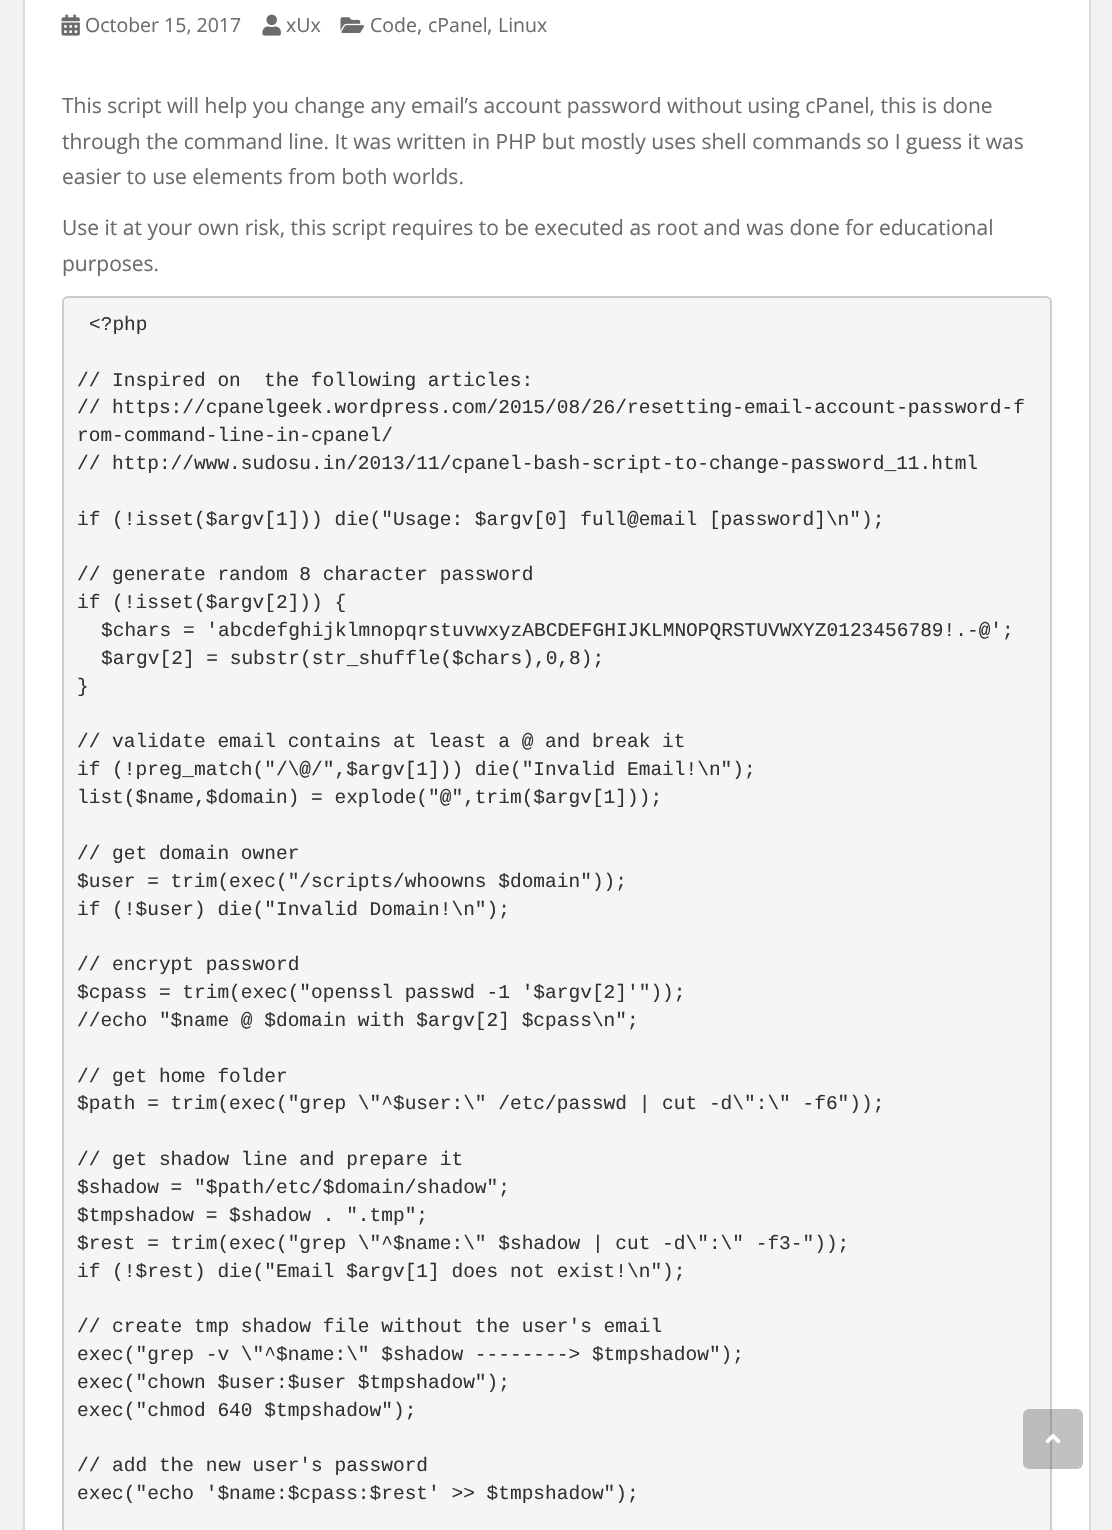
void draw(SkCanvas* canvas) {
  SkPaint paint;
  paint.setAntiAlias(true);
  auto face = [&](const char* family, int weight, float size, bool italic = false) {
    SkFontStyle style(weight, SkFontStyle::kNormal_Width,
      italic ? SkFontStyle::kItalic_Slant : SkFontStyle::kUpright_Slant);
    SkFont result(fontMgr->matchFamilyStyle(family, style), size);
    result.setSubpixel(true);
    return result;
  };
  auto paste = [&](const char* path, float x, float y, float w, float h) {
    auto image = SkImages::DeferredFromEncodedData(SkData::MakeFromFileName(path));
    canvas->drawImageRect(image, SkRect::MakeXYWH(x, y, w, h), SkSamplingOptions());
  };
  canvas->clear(0xfff2f2f2);
  paint.setColor(0xffffffff);
  canvas->drawRect(SkRect::MakeXYWH(24, -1, 1066, 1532), paint);
  paint.setStroke(true);
  paint.setStrokeWidth(2);
  paint.setColor(0xffdadada);
  canvas->drawRect(SkRect::MakeXYWH(24, -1, 1066, 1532), paint);
  paste("img/1.png", 61, 14, 19, 22);
  paste("img/2.png", 262, 14, 19, 22);
  paste("img/3.png", 340, 17, 25, 16);
  paint.setStroke(false);
  paint.setColor(0xfff5f5f5);
  canvas->drawRoundRect(SkRect::MakeXYWH(63, 297, 988, 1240), 5, 5, paint);
  paint.setStroke(true);
  paint.setColor(0xffcccccc);
  canvas->drawRoundRect(SkRect::MakeXYWH(63, 297, 988, 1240), 5, 5, paint);
  paint.setStroke(false);
  paint.setColor(0x66646464);
  canvas->drawRoundRect(SkRect::MakeXYWH(1023, 1409, 60, 60), 6, 6, paint);
  paste("img/4.png", 1045, 1433, 16, 11);
  auto f0 = face("Open Sans", 400, 19.5f);
  paint.setColor(0xff6b6b6b);
  {
    const struct { const char* s; float x, y; } items[] = {
      {"October 15, 2017", 85, 32},
      {"xUx", 286, 32},
      {"Code", 370, 32},
    };
    for (auto [s, x, y] : items) {
      canvas->drawString(s, x, y, f0, paint);
    }
  }
  auto f1 = face("Open Sans", 400, 21);
  canvas->drawString(",", 417, 32, f1, paint);
  canvas->drawString("cPanel", 428, 32, f0, paint);
  canvas->drawString(",", 487, 32, f1, paint);
  canvas->drawString("Linux", 498, 32, f0, paint);
  {
    const struct { const char* s; float x, y; } items[] = {
      {"This script will help you change any email’s account password without using cPanel, this is done", 62, 113},
      {"through the command line. It was written in PHP but mostly uses shell commands so I guess it was", 62, 149},
      {"easier to use elements from both worlds.", 62, 184},
      {"Use it at your own risk, this script requires to be executed as root and was done for educational", 62, 235},
      {"purposes.", 62, 271},
    };
    for (auto [s, x, y] : items) {
      canvas->drawString(s, x, y, f1, paint);
    }
  }
  auto f2 = face("Liberation Mono", 400, 19.5f);
  paint.setColor(0xff333333);
  {
    const struct { const char* s; float x, y; } items[] = {
      {"<?php", 89, 330},
      {"// Inspired on", 77, 386},
      {"the following articles:", 264, 386},
      {"// https://cpanelgeek.wordpress.com/2015/08/26/resetting-email-account-password-f", 77, 413},
      {"rom-command-line-in-cpanel/", 77, 441},
      {"// http://www.sudosu.in/2013/11/cpanel-bash-script-to-change-password_11.html", 77, 469},
      {"if (!isset($argv[1])) die(\"Usage: $argv[0] full@email [password]\\n\");", 77, 525},
      {"// generate random 8 character password", 77, 580},
      {"if (!isset($argv[2])) {", 77, 608},
      {"$chars = 'abcdefghijklmnopqrstuvwxyzABCDEFGHIJKLMNOPQRSTUVWXYZ0123456789!.-@';", 101, 636},
      {"$argv[2] = substr(str_shuffle($chars),0,8);", 101, 664},
      {"}", 77, 692},
      {"// validate email contains at least a @ and break it", 77, 747},
      {"if (!preg_match(\"/\\@/\",$argv[1])) die(\"Invalid Email!\\n\");", 77, 775},
      {"list($name,$domain) = explode(\"@\",trim($argv[1]));", 77, 803},
      {"// get domain owner", 77, 859},
      {"$user = trim(exec(\"/scripts/whoowns $domain\"));", 77, 887},
      {"if (!$user) die(\"Invalid Domain!\\n\");", 77, 915},
      {"// encrypt password", 77, 970},
      {"$cpass = trim(exec(\"openssl passwd -1 '$argv[2]'\"));", 77, 998},
      {"//echo \"$name @ $domain with $argv[2] $cpass\\n\";", 77, 1026},
      {"// get home folder", 77, 1082},
      {"$path = trim(exec(\"grep \\\"^$user:\\\" /etc/passwd | cut -d\\\":\\\" -f6\"));", 77, 1109},
      {"// get shadow line and prepare it", 77, 1165},
      {"$shadow = \"$path/etc/$domain/shadow\";", 77, 1193},
      {"$tmpshadow = $shadow . \".tmp\";", 77, 1221},
      {"$rest = trim(exec(\"grep \\\"^$name:\\\" $shadow | cut -d\\\":\\\" -f3-\"));", 77, 1249},
      {"if (!$rest) die(\"Email $argv[1] does not exist!\\n\");", 77, 1277},
      {"// create tmp shadow file without the user's email", 77, 1332},
      {"exec(\"grep -v \\\"^$name:\\\" $shadow --------> $tmpshadow\");", 77, 1360},
      {"exec(\"chown $user:$user $tmpshadow\");", 77, 1388},
      {"exec(\"chmod 640 $tmpshadow\");", 77, 1416},
      {"// add the new user's password", 77, 1471},
      {"exec(\"echo '$name:$cpass:$rest' >> $tmpshadow\");", 77, 1499},
    };
    for (auto [s, x, y] : items) {
      canvas->drawString(s, x, y, f2, paint);
    }
  }
}
